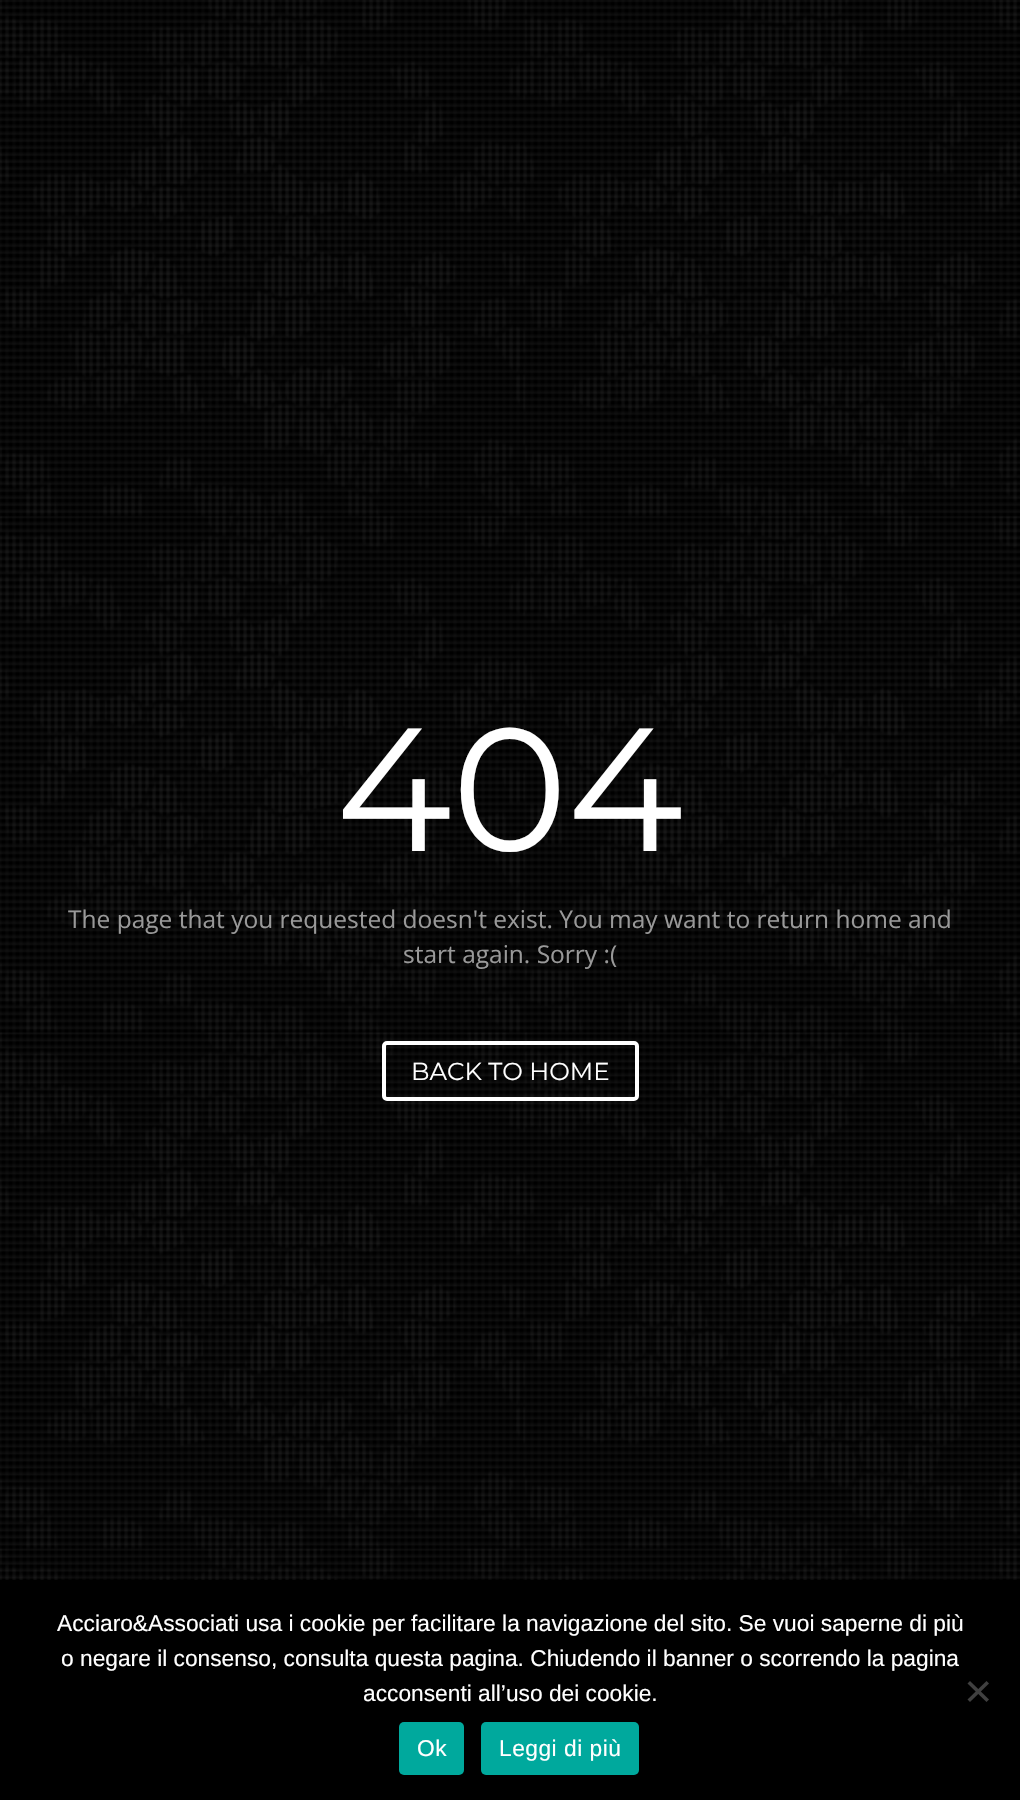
void draw(SkCanvas* canvas) {
  SkPaint paint;
  paint.setAntiAlias(true);
  auto face = [&](const char* family, int weight, float size, bool italic = false) {
    SkFontStyle style(weight, SkFontStyle::kNormal_Width,
      italic ? SkFontStyle::kItalic_Slant : SkFontStyle::kUpright_Slant);
    SkFont result(fontMgr->matchFamilyStyle(family, style), size);
    result.setSubpixel(true);
    return result;
  };
  auto writeSpaced = [&](const char* s, float x, float y, const SkFont& font, const SkPaint& ink, float letter, float word) {
    std::vector<SkGlyphID> glyphs(font.countText(s, strlen(s), SkTextEncoding::kUTF8));
    std::vector<float> xs(glyphs.size());
    font.textToGlyphs(s, strlen(s), SkTextEncoding::kUTF8, glyphs);
    font.getXPos(glyphs, xs, x);
    float extra = 0;
    for (size_t i = 0; i < glyphs.size(); i++) {
      xs[i] += extra;
      extra += letter + word * (glyphs[i] == font.unicharToGlyph(' '));
    }
    canvas->drawTextBlob(SkTextBlob::MakeFromPosHGlyphs(glyphs, xs, y, font), 0, 0, ink);
  };
  auto paste = [&](const char* path, float x, float y, float w, float h) {
    auto image = SkImages::DeferredFromEncodedData(SkData::MakeFromFileName(path));
    canvas->drawImageRect(image, SkRect::MakeXYWH(x, y, w, h), SkSamplingOptions());
  };
  auto shape = [&](const char* data, bool evenOdd = false) {
    SkPath result = *SkParsePath::FromSVGString(data);
    if (evenOdd) result.setFillType(SkPathFillType::kEvenOdd);
    return result;
  };
  canvas->clear(0xffffffff);
  paste("img/1.png", 0, 0, 1020, 1580);
  paint.setStroke(true);
  paint.setStrokeWidth(4);
  paint.setColor(0xffffffff);
  canvas->drawRoundRect(SkRect::MakeXYWH(384, 1043, 253, 56), 3, 3, paint);
  paint.setStroke(false);
  paint.setColor(0xff000000);
  canvas->drawRect(SkRect::MakeXYWH(0, 1580, 1020, 220), paint);
  paint.setColor(0xff404040);
  canvas->drawPath(shape("M986.5 1681L989 1683.5L970 1702L967.5 1699.5Z"), paint);
  canvas->drawPath(shape("M967.5 1683.5L970 1681L989 1699.5L986.5 1702Z"), paint);
  paint.setColor(0xff00a99d);
  canvas->drawRoundRect(SkRect::MakeXYWH(399, 1722, 65, 53), 5, 5, paint);
  canvas->drawRoundRect(SkRect::MakeXYWH(481, 1722, 158, 53), 5, 5, paint);
  auto f0 = face("Montserrat", 400, 175);
  paint.setColor(0xffffffff);
  canvas->drawString("404", 336, 851, f0, paint);
  auto f1 = face("Open Sans", 400, 24.5f);
  paint.setColor(0xff999999);
  canvas->drawString("The page that you requested doesn't exist. You may want to return home and", 68, 928, f1, paint);
  canvas->drawString("start again. Sorry :(", 403, 963, f1, paint);
  auto f2 = face("Montserrat", 400, 24.5f);
  paint.setColor(0xffffffff);
  canvas->drawString("BACK TO HOME", 411, 1080, f2, paint);
  auto f3 = face("Liberation Sans", 400, 22.75f);
  {
    const struct { const char* s; float x, y; } items[] = {
      {"Acciaro&Associati usa i cookie per facilitare la navigazione del sito. Se vuoi saperne di più", 57, 1631},
      {"o negare il consenso, consulta questa pagina. Chiudendo il banner o scorrendo la pagina", 61, 1666},
      {"acconsenti all’uso dei cookie.", 363, 1701},
    };
    for (auto [s, x, y] : items) {
      canvas->drawString(s, x, y, f3, paint);
    }
  }
  writeSpaced("Ok", 417, 1756, f3, paint, 0.5f, 0);
  writeSpaced("Leggi di più", 499, 1756, f3, paint, 0.5f, 0);
}
